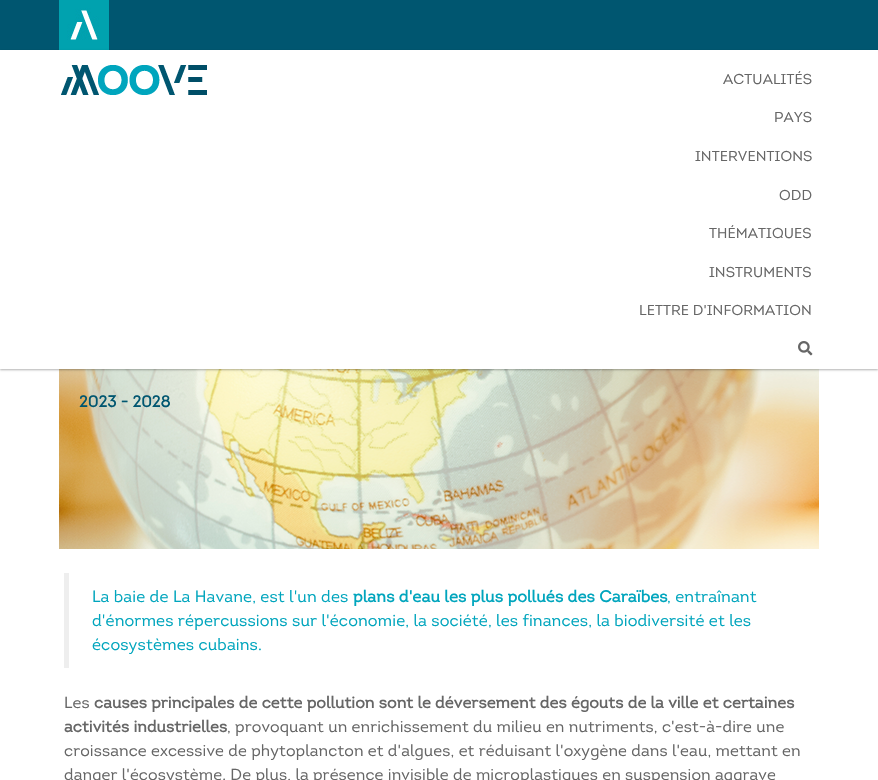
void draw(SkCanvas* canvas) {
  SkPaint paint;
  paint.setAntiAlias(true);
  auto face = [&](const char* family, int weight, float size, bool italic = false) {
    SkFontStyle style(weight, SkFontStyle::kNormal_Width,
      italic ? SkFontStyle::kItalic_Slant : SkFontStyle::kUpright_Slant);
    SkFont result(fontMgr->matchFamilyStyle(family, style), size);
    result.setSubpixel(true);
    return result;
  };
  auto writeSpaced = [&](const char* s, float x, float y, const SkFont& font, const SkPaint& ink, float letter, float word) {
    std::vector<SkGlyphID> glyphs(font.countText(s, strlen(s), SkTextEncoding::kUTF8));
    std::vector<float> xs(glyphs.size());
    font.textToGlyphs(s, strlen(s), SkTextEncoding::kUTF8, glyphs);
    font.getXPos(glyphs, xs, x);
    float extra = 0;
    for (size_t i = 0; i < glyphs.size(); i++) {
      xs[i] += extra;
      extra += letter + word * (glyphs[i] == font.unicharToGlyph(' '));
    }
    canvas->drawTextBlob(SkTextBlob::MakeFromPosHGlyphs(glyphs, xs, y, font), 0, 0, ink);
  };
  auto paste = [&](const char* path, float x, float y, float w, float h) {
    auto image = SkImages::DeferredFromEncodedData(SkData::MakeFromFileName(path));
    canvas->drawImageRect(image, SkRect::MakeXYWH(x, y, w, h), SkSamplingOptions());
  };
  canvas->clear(0xffffffff);
  paint.setColor(0xff005670);
  canvas->drawRect(SkRect::MakeXYWH(0, 0, 878, 50), paint);
  paste("img/1.png", 59, 0, 50, 50);
  paste("img/4.png", 59, 369, 760, 180);
  paint.setColor(0x4d000000);
  paint.setMaskFilter(SkMaskFilter::MakeBlur(kNormal_SkBlurStyle, 1));
  canvas->drawRect(SkRect::MakeXYWH(0, 51, 878, 319), paint);
  paint.setMaskFilter(nullptr);
  paint.setColor(0xffffffff);
  canvas->drawRect(SkRect::MakeXYWH(0, 50, 878, 319), paint);
  paste("img/2.png", 61, 65, 146, 30);
  paste("img/3.png", 798, 341, 15, 15);
  paint.setColor(0xffeeeeee);
  canvas->drawRect(SkRect::MakeXYWH(64, 573, 5, 95), paint);
  auto f0 = face("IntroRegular", 400, 14.4f);
  paint.setColor(0xff666666);
  {
    const struct { const char* s; float x, y; } items[] = {
      {"ACTUALITÉS", 723, 84},
      {"PAYS", 774, 122},
      {"INTERVENTIONS", 695, 161},
      {"ODD", 779, 200},
      {"THÉMATIQUES", 709, 238},
      {"INSTRUMENTS", 709, 277},
      {"LETTRE D'INFORMATION", 639, 315},
    };
    for (auto [s, x, y] : items) {
      writeSpaced(s, x, y, f0, paint, 0.1f, 0);
    }
  }
  auto f1 = face("IntroRegular", 700, 16);
  paint.setColor(0xff005670);
  writeSpaced("2023 - 2028", 79, 407, f1, paint, 0.1f, 0);
  auto f2 = face("IntroRegular", 400, 16.25f);
  paint.setColor(0xff00a5bd);
  writeSpaced("La baie de La Havane, est l'un des", 92, 602, f2, paint, 0.1f, 0);
  auto f3 = face("IntroRegular", 700, 16.25f);
  writeSpaced("plans d'eau les plus pollués des Caraïbes", 353, 602, f3, paint, 0.1f, 0);
  {
    const struct { const char* s; float x, y; } items[] = {
      {", entraînant", 667, 602},
      {"d'énormes répercussions sur l'économie, la société, les finances, la biodiversité et les", 92, 626},
      {"écosystèmes cubains.", 92, 650},
    };
    for (auto [s, x, y] : items) {
      writeSpaced(s, x, y, f2, paint, 0.1f, 0);
    }
  }
  auto f4 = face("IntroRegular", 400, 16);
  paint.setColor(0xff666666);
  writeSpaced("Les", 64, 708, f4, paint, 0.1f, 0);
  writeSpaced("causes principales de cette pollution sont le déversement des égouts de la ville et certaines", 94, 708, f1, paint, 0.1f, 0);
  writeSpaced("activités industrielles", 64, 732, f1, paint, 0.1f, 0);
  {
    const struct { const char* s; float x, y; } items[] = {
      {", provoquant un enrichissement du milieu en nutriments, c'est-à-dire une", 227, 732},
      {"croissance excessive de phytoplancton et d'algues, et réduisant l'oxygène dans l'eau, mettant en", 64, 756},
      {"danger l'écosystème. De plus, la présence invisible de microplastiques en suspension aggrave", 64, 780},
    };
    for (auto [s, x, y] : items) {
      writeSpaced(s, x, y, f4, paint, 0.1f, 0);
    }
  }
}
